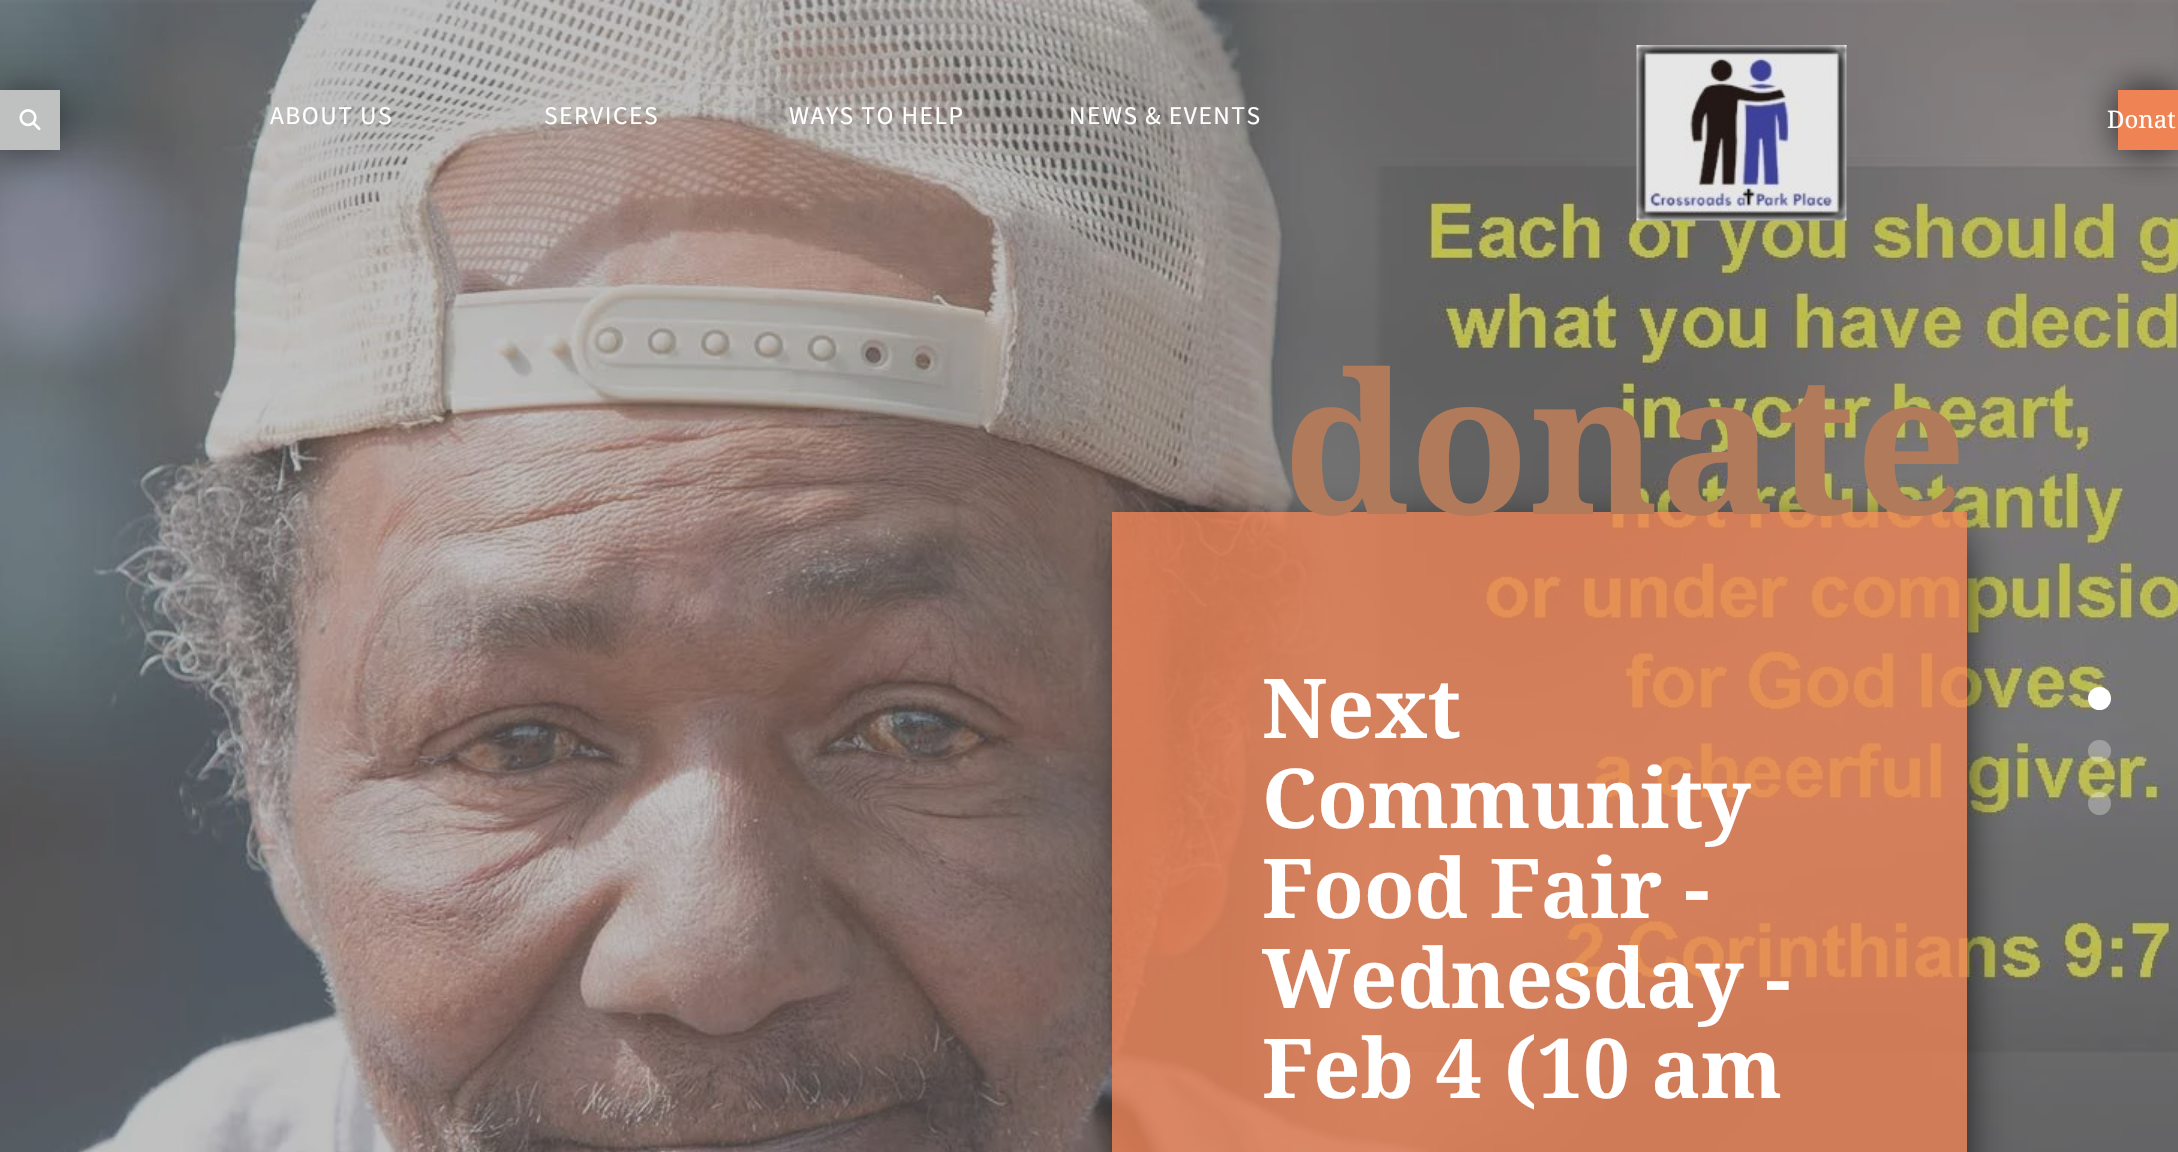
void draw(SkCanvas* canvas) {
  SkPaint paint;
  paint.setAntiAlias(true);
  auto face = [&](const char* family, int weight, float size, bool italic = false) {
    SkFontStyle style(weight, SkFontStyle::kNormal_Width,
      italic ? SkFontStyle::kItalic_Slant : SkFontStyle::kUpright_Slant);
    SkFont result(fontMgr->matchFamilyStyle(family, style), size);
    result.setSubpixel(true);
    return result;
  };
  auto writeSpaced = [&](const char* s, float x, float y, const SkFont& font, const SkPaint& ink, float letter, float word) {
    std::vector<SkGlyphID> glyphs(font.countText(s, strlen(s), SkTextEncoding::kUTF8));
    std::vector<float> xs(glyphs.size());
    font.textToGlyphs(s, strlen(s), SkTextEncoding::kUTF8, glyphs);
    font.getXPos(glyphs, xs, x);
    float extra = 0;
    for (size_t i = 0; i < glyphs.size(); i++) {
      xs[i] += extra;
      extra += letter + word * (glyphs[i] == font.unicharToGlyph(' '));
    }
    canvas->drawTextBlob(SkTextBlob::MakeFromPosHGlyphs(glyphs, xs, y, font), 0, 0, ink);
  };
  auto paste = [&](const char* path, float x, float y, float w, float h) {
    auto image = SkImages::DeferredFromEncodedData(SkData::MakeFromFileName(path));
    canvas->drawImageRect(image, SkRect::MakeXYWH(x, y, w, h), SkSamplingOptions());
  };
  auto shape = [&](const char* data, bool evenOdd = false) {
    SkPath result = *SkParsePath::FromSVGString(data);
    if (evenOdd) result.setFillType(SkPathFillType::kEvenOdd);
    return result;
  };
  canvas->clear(0xffffffff);
  paste("img/3.png", 0, 0, 2178, 1152);
  paint.setColor(0xff000000);
  paint.setMaskFilter(SkMaskFilter::MakeBlur(kNormal_SkBlurStyle, 22.5f));
  canvas->drawRect(SkRect::MakeXYWH(11, 101, 39, 39), paint);
  paint.setMaskFilter(nullptr);
  paint.setColor(0xffbfc0c0);
  canvas->drawRect(SkRect::MakeXYWH(0, 90, 60, 60), paint);
  paste("img/1.png", 19, 109, 22, 22);
  paste("img/2.png", 1636, 45, 211, 176);
  paint.setColor(0xff000000);
  paint.setMaskFilter(SkMaskFilter::MakeBlur(kNormal_SkBlurStyle, 22.5f));
  canvas->drawRect(SkRect::MakeXYWH(2129, 101, 39, 39), paint);
  paint.setMaskFilter(nullptr);
  paint.setColor(0xffef8354);
  canvas->drawRect(SkRect::MakeXYWH(2118, 90, 60, 60), paint);
  canvas->save();
  canvas->clipPath(shape("M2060 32H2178V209H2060ZM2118 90H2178V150H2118Z", true), true);
  paint.setColor(0xff000000);
  paint.setMaskFilter(SkMaskFilter::MakeBlur(kNormal_SkBlurStyle, 22.5f));
  canvas->drawRect(SkRect::MakeXYWH(2129, 101, 39, 39), paint);
  paint.setMaskFilter(nullptr);
  canvas->restore();
  canvas->save();
  canvas->clipPath(shape("M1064 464H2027V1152H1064ZM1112 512H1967V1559H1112Z", true), true);
  paint.setMaskFilter(SkMaskFilter::MakeBlur(kNormal_SkBlurStyle, 22.5f));
  canvas->drawRect(SkRect::MakeXYWH(1133, 533, 825, 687), paint);
  paint.setMaskFilter(nullptr);
  canvas->restore();
  paint.setColor(0xc7ef8354);
  canvas->drawRect(SkRect::MakeXYWH(1112, 512, 855, 640), paint);
  paint.setColor(0xffffffff);
  canvas->drawCircle(2099.5f, 698.5f, 11.5f, paint);
  paint.setColor(0x4dffffff);
  canvas->drawRoundRect(SkRect::MakeXYWH(2088, 740, 23, 22), 11, 11, paint);
  canvas->drawCircle(2099.5f, 803.5f, 11.5f, paint);
  auto f0 = face("Source Sans 3", 400, 25.5f);
  paint.setColor(0xffffffff);
  {
    const struct { const char* s; float x, y; } items[] = {
      {"ABOUT US", 270, 124},
      {"SERVICES", 544, 124},
      {"WAYS TO HELP", 789, 124},
      {"NEWS & EVENTS", 1069, 124},
    };
    for (auto [s, x, y] : items) {
      writeSpaced(s, x, y, f0, paint, 1.5f, 0);
    }
  }
  auto f1 = face("Noto Serif", 400, 24);
  canvas->drawString("Donat", 2107, 128, f1, paint);
  auto f2 = face("Noto Serif", 700, 195);
  paint.setColor(0xffb17a5b);
  canvas->drawString("donate", 1283, 514, f2, paint);
  auto f3 = face("Noto Serif", 700, 82.5f);
  paint.setColor(0xffffffff);
  {
    const struct { const char* s; float x, y; } items[] = {
      {"Next", 1262, 738},
      {"Community", 1262, 828},
      {"Food Fair -", 1262, 918},
      {"Wednesday -", 1262, 1008},
      {"Feb 4 (10 am", 1262, 1098},
    };
    for (auto [s, x, y] : items) {
      canvas->drawString(s, x, y, f3, paint);
    }
  }
}
